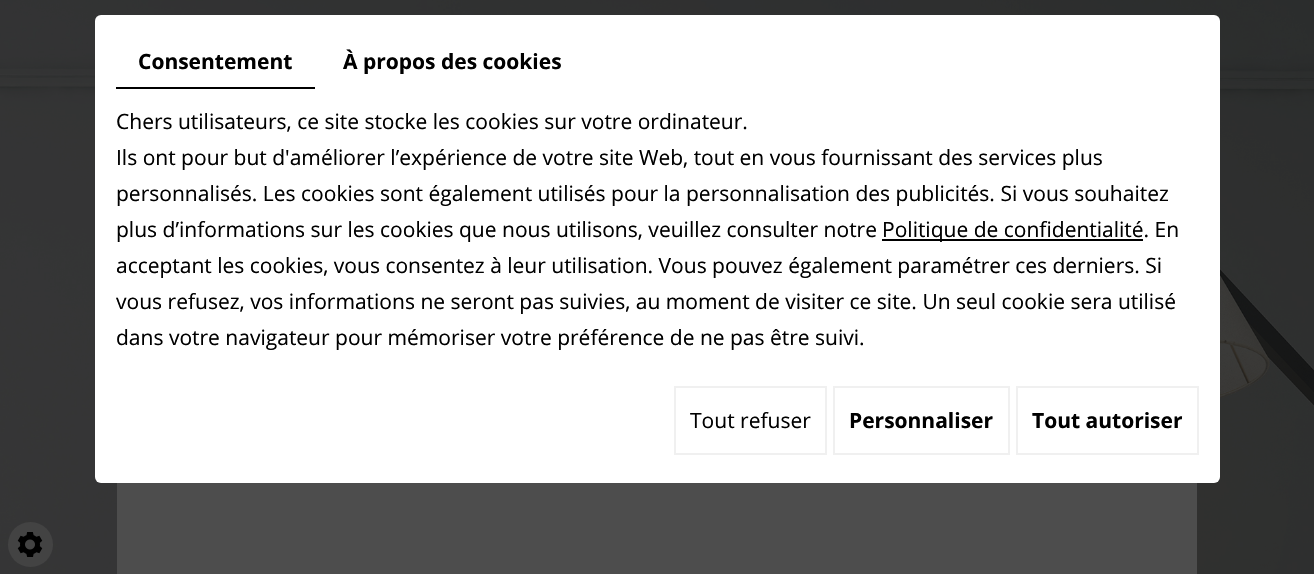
void draw(SkCanvas* canvas) {
  SkPaint paint;
  paint.setAntiAlias(true);
  auto face = [&](const char* family, int weight, float size, bool italic = false) {
    SkFontStyle style(weight, SkFontStyle::kNormal_Width,
      italic ? SkFontStyle::kItalic_Slant : SkFontStyle::kUpright_Slant);
    SkFont result(fontMgr->matchFamilyStyle(family, style), size);
    result.setSubpixel(true);
    return result;
  };
  auto paste = [&](const char* path, float x, float y, float w, float h) {
    auto image = SkImages::DeferredFromEncodedData(SkData::MakeFromFileName(path));
    canvas->drawImageRect(image, SkRect::MakeXYWH(x, y, w, h), SkSamplingOptions());
  };
  canvas->clear(0xffffffff);
  paste("img/1.png", 0, 0, 1314, 574);
  paint.setColor(0xffffffff);
  canvas->drawRoundRect(SkRect::MakeXYWH(95, 15, 1125, 468), 6, 6, paint);
  paint.setColor(0xff000000);
  canvas->drawRect(SkRect::MakeXYWH(116, 87, 199, 2), paint);
  canvas->drawRect(SkRect::MakeXYWH(882, 239, 261, 2), paint);
  paint.setStroke(true);
  paint.setStrokeWidth(2);
  paint.setColor(0xfff0f0f0);
  canvas->drawRect(SkRect::MakeXYWH(675, 387, 151, 67), paint);
  canvas->drawRect(SkRect::MakeXYWH(834, 387, 175, 67), paint);
  canvas->drawRect(SkRect::MakeXYWH(1017, 387, 181, 67), paint);
  paint.setStroke(false);
  paint.setColor(0x8a4d4d4d);
  canvas->drawCircle(30.5f, 544.5f, 22.5f, paint);
  paste("img/2.png", 17, 532, 26, 25);
  paint.setColor(0xff4d4d4d);
  canvas->drawRect(SkRect::MakeXYWH(117, 483, 1080, 91), paint);
  auto f0 = face("Open Sans", 700, 21);
  paint.setColor(0xff000000);
  canvas->drawString("Consentement", 138, 69, f0, paint);
  canvas->drawString("À propos des cookies", 343, 69, f0, paint);
  auto f1 = face("Open Sans", 400, 21);
  {
    const struct { const char* s; float x, y; } items[] = {
      {"Chers utilisateurs, ce site stocke les cookies sur votre ordinateur.", 116, 129},
      {"Ils ont pour but d'améliorer l’expérience de votre site Web, tout en vous fournissant des services plus", 116, 165},
      {"personnalisés. Les cookies sont également utilisés pour la personnalisation des publicités. Si vous souhaitez", 116, 201},
      {"plus d’informations sur les cookies que nous utilisons, veuillez consulter notre", 116, 237},
      {"Politique de confidentialité. En", 882, 237},
      {"acceptant les cookies, vous consentez à leur utilisation. Vous pouvez également paramétrer ces derniers. Si", 116, 273},
      {"vous refusez, vos informations ne seront pas suivies, au moment de visiter ce site. Un seul cookie sera utilisé", 116, 309},
      {"dans votre navigateur pour mémoriser votre préférence de ne pas être suivi.", 116, 345},
      {"Tout refuser", 690, 428},
    };
    for (auto [s, x, y] : items) {
      canvas->drawString(s, x, y, f1, paint);
    }
  }
  canvas->drawString("Personnaliser", 849, 428, f0, paint);
  canvas->drawString("Tout autoriser", 1032, 428, f0, paint);
}
